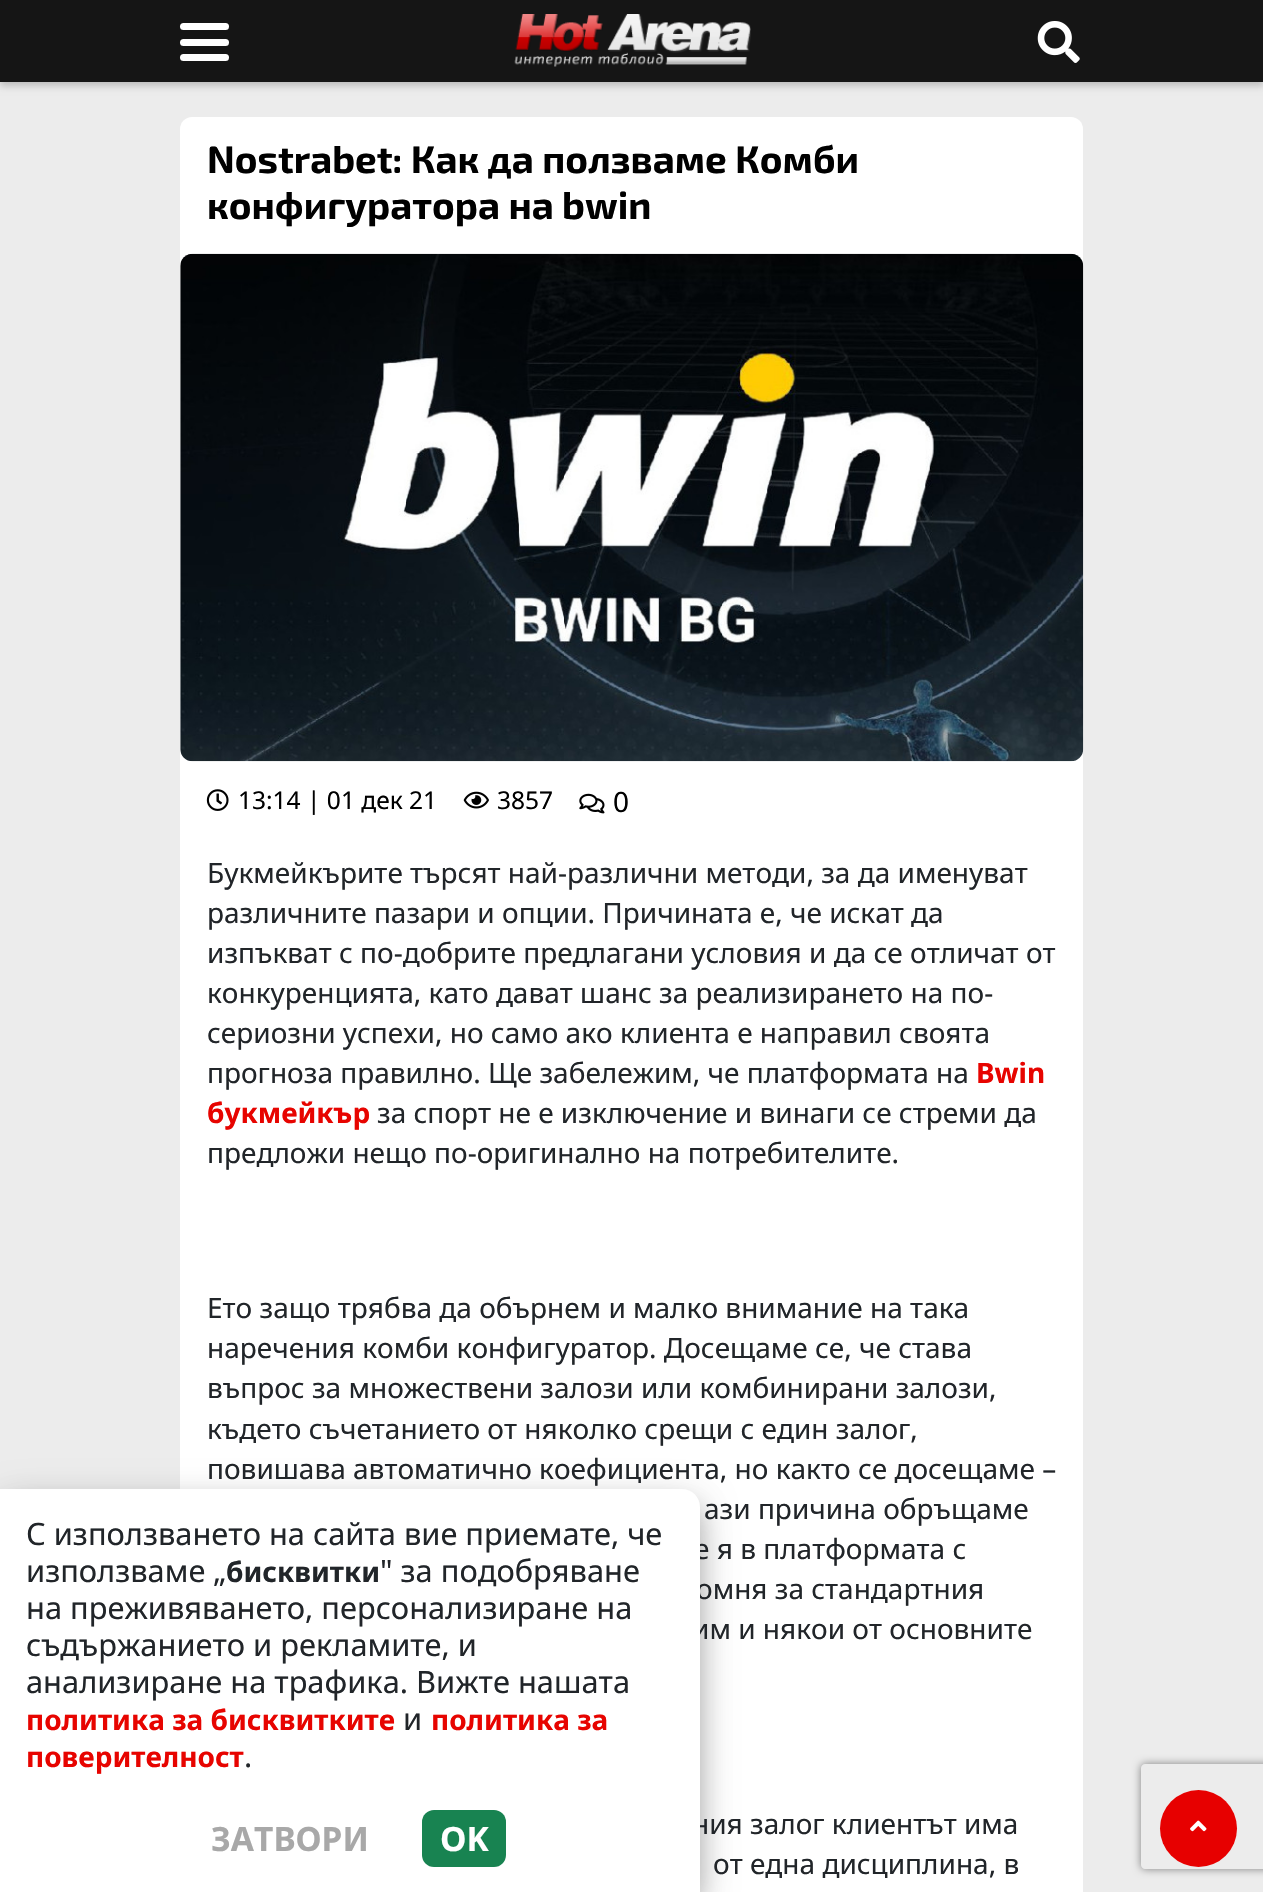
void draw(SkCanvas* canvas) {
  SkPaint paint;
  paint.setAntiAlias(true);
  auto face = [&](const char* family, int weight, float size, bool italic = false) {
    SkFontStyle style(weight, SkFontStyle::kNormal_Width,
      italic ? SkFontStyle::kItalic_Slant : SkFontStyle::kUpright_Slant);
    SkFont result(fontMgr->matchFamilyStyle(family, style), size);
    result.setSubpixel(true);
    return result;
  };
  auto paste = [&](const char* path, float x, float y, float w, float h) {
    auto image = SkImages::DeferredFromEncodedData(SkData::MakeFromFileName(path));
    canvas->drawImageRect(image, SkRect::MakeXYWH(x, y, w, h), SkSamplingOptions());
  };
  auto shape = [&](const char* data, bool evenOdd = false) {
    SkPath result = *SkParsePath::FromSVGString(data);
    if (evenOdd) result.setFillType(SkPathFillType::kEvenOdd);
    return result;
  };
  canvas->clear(0xffececec);
  paint.setColor(0x33000000);
  paint.setMaskFilter(SkMaskFilter::MakeBlur(kNormal_SkBlurStyle, 3.5f));
  canvas->drawRect(SkRect::MakeXYWH(0, 4, 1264, 82), paint);
  paint.setMaskFilter(nullptr);
  paint.setColor(0xff151515);
  canvas->drawRect(SkRect::MakeXYWH(0, 0, 1263, 82), paint);
  paint.setColor(0xffffffff);
  canvas->drawRoundRect(SkRect::MakeXYWH(180, 23, 49, 7), 3.5f, 3.5f, paint);
  canvas->drawRoundRect(SkRect::MakeXYWH(180, 39, 49, 7), 3.5f, 3.5f, paint);
  canvas->drawRoundRect(SkRect::MakeXYWH(180, 54, 49, 7), 3.5f, 3.5f, paint);
  paste("img/1.png", 514, 14, 237, 53);
  paste("img/2.png", 1037, 21, 43, 42);
  canvas->drawRoundRect(SkRect::MakeXYWH(180, 117, 903, 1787), 12, 12, paint);
  paste("img/3.png", 180, 253, 904, 509);
  paste("img/4.png", 206, 789, 23, 22);
  paste("img/5.png", 463, 791, 26, 18);
  paste("img/6.png", 579, 793, 26, 21);
  canvas->save();
  canvas->clipPath(shape("M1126 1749H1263V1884H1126ZM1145 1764H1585C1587 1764 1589 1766 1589 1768V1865C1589 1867 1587 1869 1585 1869H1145C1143 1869 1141 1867 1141 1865V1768C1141 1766 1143 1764 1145 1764Z", true), true);
  paint.setColor(0xff808080);
  paint.setMaskFilter(SkMaskFilter::MakeBlur(kNormal_SkBlurStyle, 4.5f));
  canvas->drawRoundRect(SkRect::MakeXYWH(1141, 1764, 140, 105), 4, 4, paint);
  paint.setMaskFilter(nullptr);
  canvas->restore();
  paint.setColor(0x30000000);
  paint.setMaskFilter(SkMaskFilter::MakeBlur(kNormal_SkBlurStyle, 17.5f));
  canvas->drawRoundRect(SkRect::MakeXYWH(0, 1500, 700, 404), 18, 18, paint);
  paint.setMaskFilter(nullptr);
  paint.setColor(0x33000000);
  paint.setMaskFilter(SkMaskFilter::MakeBlur(kNormal_SkBlurStyle, 14));
  canvas->drawRoundRect(SkRect::MakeXYWH(0, 1507, 700, 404), 18, 18, paint);
  paint.setMaskFilter(nullptr);
  paint.setColor(0xffe70000);
  canvas->drawCircle(1198.5f, 1828.5f, 38.5f, paint);
  paste("img/7.png", 1190, 1820, 17, 12);
  auto f0 = face("Exo 2", 700, 38.5f);
  paint.setColor(0xff000000);
  canvas->drawString("Nostrabet: Как да ползваме Комби", 207, 173, f0, paint);
  canvas->drawString("конфигуратора на bwin", 207, 219, f0, paint);
  auto f1 = face("Noto Sans", 400, 24.5f);
  canvas->drawString("13:14 | 01 дек 21", 238, 809, f1, paint);
  canvas->drawString("3857", 497, 809, f1, paint);
  auto f2 = face("Noto Sans", 400, 28);
  canvas->drawString("0", 613, 812, f2, paint);
  paint.setColor(0xff212529);
  {
    const struct { const char* s; float x, y; } items[] = {
      {"Букмейкърите търсят най-различни методи, за да именуват", 207, 883},
      {"различните пазари и опции. Причината е, че искат да", 207, 923},
      {"изпъкват с по-добрите предлагани условия и да се отличат от", 207, 963},
      {"конкуренцията, като дават шанс за реализирането на по-", 207, 1003},
      {"сериозни успехи, но само ако клиента е направил своята", 207, 1043},
      {"прогноза правилно. Ще забележим, че платформата на", 207, 1083},
    };
    for (auto [s, x, y] : items) {
      canvas->drawString(s, x, y, f2, paint);
    }
  }
  auto f3 = face("Noto Sans", 700, 28);
  paint.setColor(0xffe70400);
  canvas->drawString("Bwin", 976, 1083, f3, paint);
  canvas->drawString("букмейкър", 207, 1123, f3, paint);
  paint.setColor(0xff212529);
  {
    const struct { const char* s; float x, y; } items[] = {
      {"за спорт не е изключение и винаги се стреми да", 377, 1123},
      {"предложи нещо по-оригинално на потребителите.", 207, 1163},
      {"Ето защо трябва да обърнем и малко внимание на така", 207, 1318},
      {"наречения комби конфигуратор. Досещаме се, че става", 207, 1358},
      {"въпрос за множествени залози или комбинирани залози,", 207, 1398},
      {"където съчетанието от няколко срещи с един залог,", 207, 1439},
      {"повишава автоматично коефициента, но както се досещаме –", 207, 1479},
      {"ази причина обръщаме", 704, 1519},
      {"е я в платформата с", 694, 1559},
      {"омня за стандартния", 696, 1599},
      {"им и някои от основните", 692, 1639},
      {"ния залог клиентът има", 692, 1834},
      {"от една дисциплина, в", 713, 1874},
    };
    for (auto [s, x, y] : items) {
      canvas->drawString(s, x, y, f2, paint);
    }
  }
  paint.setColor(0xffffffff);
  canvas->drawPath(shape("M0 1489H682C692 1489 700 1497 700 1507V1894H0Z"), paint);
  auto f4 = face("Noto Sans", 400, 30.8f);
  paint.setColor(0xff212529);
  canvas->drawString("С използването на сайта вие приемате, че", 26, 1545, f4, paint);
  canvas->drawString("използваме „", 26, 1582, f4, paint);
  canvas->drawString("бисквитки", 226, 1582, f3, paint);
  {
    const struct { const char* s; float x, y; } items[] = {
      {"\" за подобряване", 380, 1582},
      {"на преживяването, персонализиране на", 26, 1619},
      {"съдържанието и рекламите, и", 26, 1656},
      {"анализиране на трафика. Вижте нашата", 26, 1693},
    };
    for (auto [s, x, y] : items) {
      canvas->drawString(s, x, y, f4, paint);
    }
  }
  paint.setColor(0xffe70400);
  canvas->drawString("политика за бисквитките", 26, 1730, f3, paint);
  paint.setColor(0xff212529);
  canvas->drawString("и", 403, 1730, f4, paint);
  paint.setColor(0xffe70400);
  canvas->drawString("политика за", 431, 1730, f3, paint);
  canvas->drawString("поверителност", 26, 1767, f3, paint);
  paint.setColor(0xff212529);
  canvas->drawString(".", 244, 1767, f4, paint);
  auto f5 = face("Noto Sans", 700, 33.5f);
  paint.setColor(0xffa8a8a8);
  canvas->drawString("ЗАТВОРИ", 211, 1851, f5, paint);
  paint.setColor(0xff188351);
  canvas->drawRoundRect(SkRect::MakeXYWH(422, 1810, 84, 57), 12, 12, paint);
  paint.setColor(0xffffffff);
  canvas->drawString("OK", 440, 1851, f5, paint);
}
